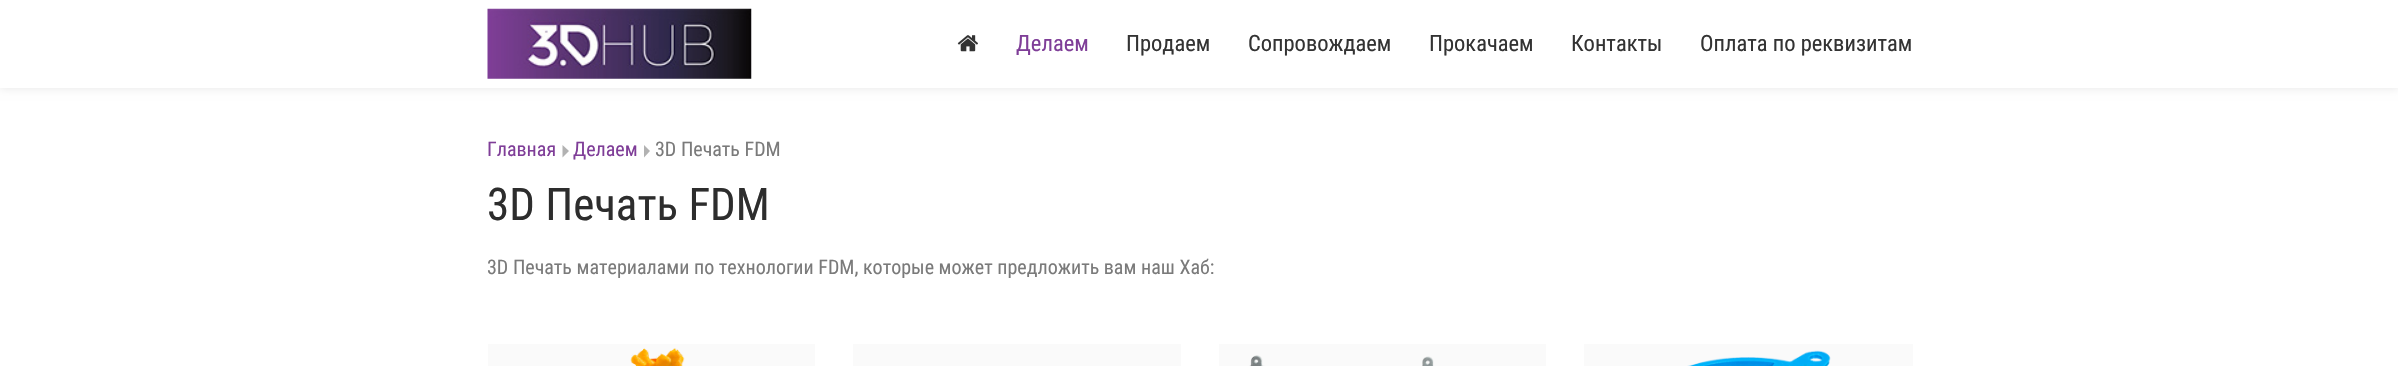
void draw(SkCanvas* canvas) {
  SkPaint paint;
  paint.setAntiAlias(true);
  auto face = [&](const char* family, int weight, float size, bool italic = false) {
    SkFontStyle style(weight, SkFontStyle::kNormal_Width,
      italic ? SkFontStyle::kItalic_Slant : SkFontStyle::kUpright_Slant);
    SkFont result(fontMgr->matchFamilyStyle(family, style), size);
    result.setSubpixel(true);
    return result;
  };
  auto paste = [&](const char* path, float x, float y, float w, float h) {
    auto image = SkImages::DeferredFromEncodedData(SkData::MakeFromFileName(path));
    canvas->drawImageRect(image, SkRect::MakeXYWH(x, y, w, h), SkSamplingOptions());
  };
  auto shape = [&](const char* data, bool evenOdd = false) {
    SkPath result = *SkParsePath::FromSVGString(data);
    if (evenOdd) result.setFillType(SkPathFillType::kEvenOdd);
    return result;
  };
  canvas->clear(0xffffffff);
  paint.setColor(0x1a000000);
  paint.setMaskFilter(SkMaskFilter::MakeBlur(kNormal_SkBlurStyle, 4.5f));
  canvas->drawRect(SkRect::MakeXYWH(0, 0, 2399, 88), paint);
  paint.setMaskFilter(nullptr);
  paint.setColor(0xffffffff);
  canvas->drawRect(SkRect::MakeXYWH(0, 0, 2398, 88), paint);
  paste("img/1.png", 487, 8, 265, 71);
  paste("img/2.png", 957, 35, 21, 17);
  paint.setColor(0xffb2b2b2);
  canvas->drawPath(shape("M562.5 157.5V145L569 151Z"), paint);
  canvas->drawPath(shape("M644 157.5V145L650 151Z"), paint);
  paint.setColor(0xfffafafa);
  canvas->drawRect(SkRect::MakeXYWH(488, 344, 327, 22), paint);
  paste("img/3.png", 630, 348, 55, 18);
  canvas->drawRect(SkRect::MakeXYWH(853, 344, 328, 22), paint);
  canvas->drawRect(SkRect::MakeXYWH(1219, 344, 327, 22), paint);
  paste("img/4.png", 1249, 355, 185, 11);
  canvas->drawRect(SkRect::MakeXYWH(1584, 344, 329, 22), paint);
  paste("img/5.png", 1687, 350, 144, 16);
  auto f0 = face("Roboto Condensed", 400, 22.5f);
  paint.setColor(0xff7f3e98);
  canvas->drawString("Делаем", 1016, 51, f0, paint);
  paint.setColor(0xff333333);
  {
    const struct { const char* s; float x, y; } items[] = {
      {"Продаем", 1126, 51},
      {"Сопровождаем", 1248, 51},
      {"Прокачаем", 1429, 51},
      {"Контакты", 1571, 51},
      {"Оплата по реквизитам", 1700, 51},
    };
    for (auto [s, x, y] : items) {
      canvas->drawString(s, x, y, f0, paint);
    }
  }
  auto f1 = face("Roboto Condensed", 400, 20);
  paint.setColor(0xff7f3e98);
  canvas->drawString("Главная", 487, 156, f1, paint);
  canvas->drawString("Делаем", 573, 156, f1, paint);
  paint.setColor(0xff7a7a7a);
  canvas->drawString("3D Печать FDM", 655, 156, f1, paint);
  auto f2 = face("Roboto Condensed", 400, 45);
  paint.setColor(0xff2d2d2d);
  canvas->drawString("3D Печать FDM", 487, 220, f2, paint);
  paint.setColor(0xff7a7a7a);
  canvas->drawString("3D Печать материалами по технологии FDM, которые может предложить вам наш Хаб:", 487, 274, f1, paint);
}
